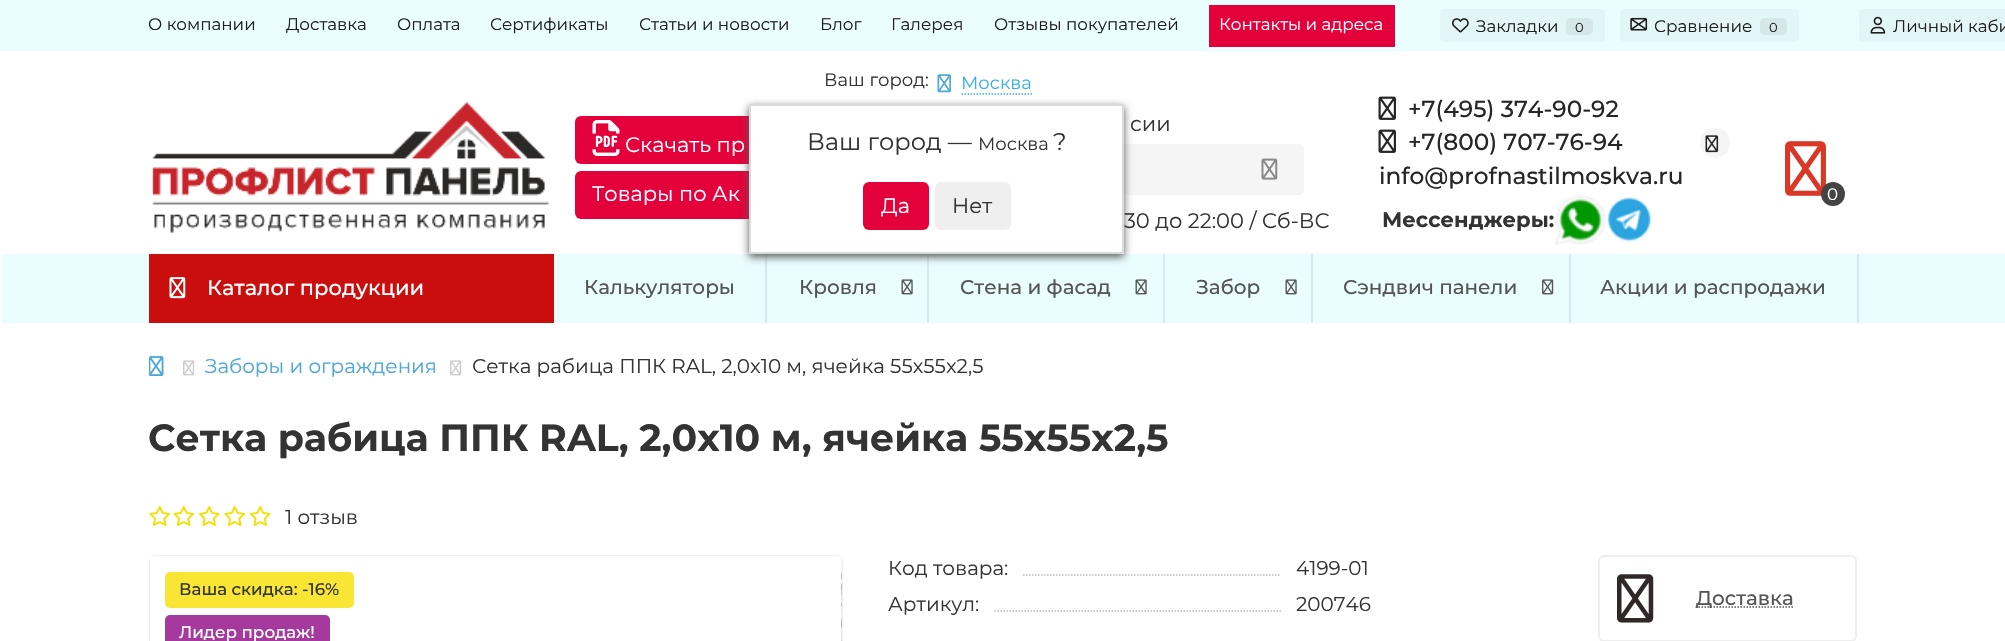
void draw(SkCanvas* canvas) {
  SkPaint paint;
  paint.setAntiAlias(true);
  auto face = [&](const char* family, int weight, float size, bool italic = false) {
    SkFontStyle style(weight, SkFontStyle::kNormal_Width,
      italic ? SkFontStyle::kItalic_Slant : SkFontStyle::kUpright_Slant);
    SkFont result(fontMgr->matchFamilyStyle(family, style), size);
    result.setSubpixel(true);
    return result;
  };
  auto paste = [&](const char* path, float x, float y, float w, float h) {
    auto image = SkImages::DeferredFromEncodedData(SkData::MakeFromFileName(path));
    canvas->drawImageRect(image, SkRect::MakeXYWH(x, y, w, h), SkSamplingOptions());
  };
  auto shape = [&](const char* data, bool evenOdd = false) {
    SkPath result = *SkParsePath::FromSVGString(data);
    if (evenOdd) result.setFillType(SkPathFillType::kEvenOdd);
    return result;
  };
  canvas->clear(0xffffffff);
  paint.setColor(0xffeafeff);
  canvas->drawRect(SkRect::MakeXYWH(0, 0, 2005, 51), paint);
  paint.setColor(0xffe4003a);
  canvas->drawRect(SkRect::MakeXYWH(1209, 5, 186, 42), paint);
  paint.setColor(0xffe3f6f7);
  canvas->drawRoundRect(SkRect::MakeXYWH(1440, 9, 165, 33), 5, 5, paint);
  paste("img/1.png", 1452, 18, 17, 15);
  paint.setColor(0xffd5e7e8);
  canvas->drawRoundRect(SkRect::MakeXYWH(1566, 18, 27, 17), 5, 5, paint);
  paint.setColor(0xffe3f6f7);
  canvas->drawRoundRect(SkRect::MakeXYWH(1620, 9, 179, 33), 5, 5, paint);
  paste("img/2.png", 1630, 17, 18, 14);
  paint.setColor(0xffd5e7e8);
  canvas->drawRoundRect(SkRect::MakeXYWH(1760, 18, 27, 17), 5, 5, paint);
  paint.setColor(0xffe3f6f7);
  canvas->drawRoundRect(SkRect::MakeXYWH(1859, 9, 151, 33), 5, 5, paint);
  paste("img/3.png", 1870, 16, 16, 18);
  paste("img/4.png", 152, 102, 397, 131);
  paint.setColor(0xffe4003a);
  canvas->drawRoundRect(SkRect::MakeXYWH(575, 116, 226, 48), 6, 6, paint);
  paste("img/5.png", 592, 120, 28, 36);
  canvas->drawRoundRect(SkRect::MakeXYWH(575, 171, 226, 48), 6, 6, paint);
  paste("img/6.png", 937, 74, 14, 19);
  paint.setStroke(true);
  paint.setStrokeWidth(1.5f);
  paint.setColor(0xff38b0e3);
  paint.setPathEffect(SkDashPathEffect::Make({{1.5f, 1.5f}}, 0));
  canvas->drawPath(shape("M961.5 94H1032"), paint);
  paint.setPathEffect(nullptr);
  paint.setStroke(false);
  paint.setColor(0xfff5f5f5);
  canvas->drawPath(shape("M998 144H1298C1301.5 144 1304 146.5 1304 150V189C1304 192.5 1301.5 195 1298 195H998Z"), paint);
  {
    const struct { float x, y, w, h; SkColor color; } items[] = {
      {2, 254, 2003, 69, 0xffeafeff},
      {765, 254, 2, 69, 0xffd7eaeb},
      {927, 254, 2, 69, 0xffd7eaeb},
    };
    for (auto [x, y, w, h, color] : items) {
      paint.setColor(color);
      canvas->drawRect(SkRect::MakeXYWH(x, y, w, h), paint);
    }
  }
  paint.setColor(0xff5b5a5a);
  paint.setMaskFilter(SkMaskFilter::MakeBlur(kNormal_SkBlurStyle, 4));
  canvas->drawRect(SkRect::MakeXYWH(749, 107, 375, 150), paint);
  paint.setMaskFilter(nullptr);
  paint.setColor(0xffffffff);
  canvas->drawRect(SkRect::MakeXYWH(750, 105, 373, 148), paint);
  paint.setStroke(true);
  paint.setStrokeWidth(2);
  paint.setColor(0xffdadada);
  canvas->drawRect(SkRect::MakeXYWH(750, 105, 373, 148), paint);
  paint.setStroke(false);
  paint.setColor(0xffe4003a);
  canvas->drawRoundRect(SkRect::MakeXYWH(863, 182, 66, 48), 6, 6, paint);
  paint.setColor(0xffefefef);
  canvas->drawRoundRect(SkRect::MakeXYWH(935, 182, 76, 48), 6, 6, paint);
  paste("img/7.png", 1261, 158, 17, 22);
  paste("img/8.png", 1378, 96, 18, 24);
  paste("img/8.png", 1378, 129, 18, 24);
  paint.setColor(0xfff5f5f5);
  canvas->drawCircle(1715, 143, 15, paint);
  paste("img/9.png", 1705, 135, 14, 18);
  paste("img/10.png", 1555, 195, 51, 51);
  paste("img/11.png", 1606, 196, 46, 46);
  paste("img/12.png", 1785, 141, 41, 55);
  paint.setColor(0xff444444);
  canvas->drawCircle(1833, 194, 12, paint);
  paint.setColor(0xffca0e0e);
  canvas->drawRect(SkRect::MakeXYWH(149, 254, 405, 69), paint);
  paste("img/13.png", 169, 277, 17, 22);
  paste("img/14.png", 901, 279, 12, 16);
  paste("img/14.png", 1135, 279, 12, 16);
  paint.setColor(0xffd7eaeb);
  canvas->drawRect(SkRect::MakeXYWH(1163, 254, 2, 69), paint);
  paste("img/14.png", 1285, 279, 12, 16);
  canvas->drawRect(SkRect::MakeXYWH(1311, 254, 2, 69), paint);
  paste("img/15.png", 1542, 279, 12, 16);
  canvas->drawRect(SkRect::MakeXYWH(1569, 254, 2, 69), paint);
  canvas->drawRect(SkRect::MakeXYWH(1857, 254, 2, 69), paint);
  paste("img/16.png", 149, 356, 15, 20);
  paste("img/17.png", 183, 360, 12, 16);
  paste("img/17.png", 450, 360, 12, 16);
  paste("img/18.png", 149, 506, 21, 20);
  paste("img/18.png", 173, 506, 21, 20);
  paste("img/19.png", 199, 506, 21, 20);
  paste("img/18.png", 224, 506, 21, 20);
  paste("img/19.png", 250, 506, 21, 20);
  paint.setStroke(true);
  paint.setColor(0xfff0f0f0);
  canvas->drawRoundRect(SkRect::MakeXYWH(150, 556, 692, 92), 5, 5, paint);
  paste("img/20.png", 150, 556, 692, 85);
  paste("img/21.png", 841, 571, 1, 70);
  paint.setStroke(false);
  paint.setColor(0xfff9e533);
  canvas->drawRoundRect(SkRect::MakeXYWH(165, 572, 189, 36), 5, 5, paint);
  paint.setColor(0xffa5399e);
  canvas->drawRoundRect(SkRect::MakeXYWH(165, 615, 165, 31), 5, 5, paint);
  paint.setStroke(true);
  paint.setStrokeWidth(1.5f);
  paint.setColor(0xffbbbbbb);
  paint.setPathEffect(SkDashPathEffect::Make({{1.5f, 1.5f}}, 0));
  canvas->drawPath(shape("M1023 575H1281"), paint);
  paint.setPathEffect(nullptr);
  paint.setPathEffect(SkDashPathEffect::Make({{1.5f, 1.5f}}, 0));
  canvas->drawPath(shape("M994.5 611H1281"), paint);
  paint.setPathEffect(nullptr);
  paint.setStrokeWidth(2);
  paint.setColor(0xffeeeeee);
  canvas->drawRoundRect(SkRect::MakeXYWH(1599, 556, 257, 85), 5, 5, paint);
  paste("img/22.png", 1617, 574, 37, 49);
  paint.setStrokeWidth(1.5f);
  paint.setColor(0xff555555);
  paint.setPathEffect(SkDashPathEffect::Make({{1.5f, 1.5f}}, 0));
  canvas->drawPath(shape("M1695.5 607H1793.5"), paint);
  paint.setPathEffect(nullptr);
  canvas->save();
  canvas->clipPath(shape("M155 5H1419C1422.5 5 1425 7.5 1425 11V41C1425 44.5 1422.5 47 1419 47H155C151.5 47 149 44.5 149 41V11C149 7.5 151.5 5 155 5Z"), true);
  auto f0 = face("Montserrat", 400, 16.75f);
  paint.setStroke(false);
  paint.setColor(0xff1f1d1d);
  canvas->drawString("О компании", 148, 30, f0, paint);
  canvas->restore();
  {
    const struct { const char* s; float x, y; } items[] = {
      {"Доставка", 286, 30},
      {"Оплата", 397, 30},
      {"Сертификаты", 490, 30},
      {"Статьи и новости", 639, 30},
      {"Блог", 820, 30},
      {"Галерея", 891, 30},
      {"Отзывы покупателей", 994, 30},
    };
    for (auto [s, x, y] : items) {
      canvas->drawString(s, x, y, f0, paint);
    }
  }
  paint.setColor(0xffffffff);
  canvas->drawString("Контакты и адреса", 1219, 30, f0, paint);
  paint.setColor(0xff1f1d1d);
  canvas->drawString("Закладки", 1476, 32, f0, paint);
  auto f1 = face("Montserrat", 400, 13);
  canvas->drawString("0", 1575, 32, f1, paint);
  canvas->drawString("Сравнение", 1654, 32, f0, paint);
  canvas->drawString("0", 1769, 32, f1, paint);
  canvas->drawString("Личный каби", 1893, 32, f0, paint);
  auto f2 = face("Montserrat", 400, 21);
  paint.setColor(0xffffffff);
  canvas->drawString("Скачать пр", 625, 152, f2, paint);
  canvas->drawString("Товары по Ак", 592, 201, f2, paint);
  auto f3 = face("Montserrat", 400, 18);
  paint.setColor(0xff333333);
  canvas->drawString("Ваш город:", 824, 86, f3, paint);
  paint.setColor(0xff38b0e3);
  canvas->drawString("Москва", 961, 89, f3, paint);
  auto f4 = face("Montserrat", 400, 24);
  paint.setColor(0xff333333);
  canvas->drawString("Ваш город —", 807, 150, f4, paint);
  canvas->drawString("Москва", 978, 150, f3, paint);
  canvas->drawString("?", 1053, 150, f4, paint);
  paint.setColor(0xffffffff);
  canvas->drawString("Да", 881, 213, f2, paint);
  paint.setColor(0xff333333);
  {
    const struct { const char* s; float x, y; } items[] = {
      {"Нет", 952, 213},
      {"сии", 1130, 131},
      {"30 до 22:00 / Cб-ВС", 1124, 228},
    };
    for (auto [s, x, y] : items) {
      canvas->drawString(s, x, y, f2, paint);
    }
  }
  auto f5 = face("Montserrat", 500, 23.25f);
  paint.setColor(0xff262626);
  {
    const struct { const char* s; float x, y; } items[] = {
      {"+7(495) 374-90-92", 1408, 117},
      {"+7(800) 707-76-94", 1408, 150},
      {"info@profnastilmoskva.ru", 1379, 184},
    };
    for (auto [s, x, y] : items) {
      canvas->drawString(s, x, y, f5, paint);
    }
  }
  auto f6 = face("Montserrat", 700, 21);
  paint.setColor(0xff333333);
  canvas->drawString("Мессенджеры:", 1382, 227, f6, paint);
  paint.setColor(0xffffffff);
  canvas->drawString("0", 1827, 200, f0, paint);
  auto f7 = face("Montserrat", 500, 21);
  canvas->drawString("Каталог продукции", 207, 295, f7, paint);
  auto f8 = face("Montserrat", 500, 19.95f);
  paint.setColor(0xff555555);
  {
    const struct { const char* s; float x, y; } items[] = {
      {"Калькуляторы", 584, 294},
      {"Кровля", 799, 294},
      {"Стена и фасад", 960, 294},
      {"Забор", 1196, 294},
      {"Сэндвич панели", 1343, 294},
      {"Акции и распродажи", 1600, 294},
    };
    for (auto [s, x, y] : items) {
      canvas->drawString(s, x, y, f8, paint);
    }
  }
  auto f9 = face("Montserrat", 400, 19.95f);
  paint.setColor(0xff4ea7d9);
  canvas->drawString("Заборы и ограждения", 205, 373, f9, paint);
  paint.setColor(0xff333333);
  canvas->drawString("Сетка рабица ППК RAL, 2,0x10 м, ячейка 55x55x2,5", 472, 373, f9, paint);
  auto f10 = face("Montserrat", 700, 37.8f);
  canvas->drawString("Сетка рабица ППК RAL, 2,0x10 м, ячейка 55x55x2,5", 148, 451, f10, paint);
  canvas->drawString("1 отзыв", 285, 524, f9, paint);
  auto f11 = face("Montserrat", 500, 16.75f);
  canvas->drawString("Ваша скидка: -16%", 179, 595, f11, paint);
  paint.setColor(0xffffffff);
  canvas->drawString("Лидер продаж!", 179, 638, f11, paint);
  paint.setColor(0xff333333);
  {
    const struct { const char* s; float x, y; } items[] = {
      {"Код товара:", 888, 575},
      {"4199-01", 1296, 575},
      {"Артикул:", 888, 611},
      {"200746", 1296, 611},
    };
    for (auto [s, x, y] : items) {
      canvas->drawString(s, x, y, f9, paint);
    }
  }
  paint.setColor(0xff555555);
  canvas->drawString("Доставка", 1696, 605, f8, paint);
}
